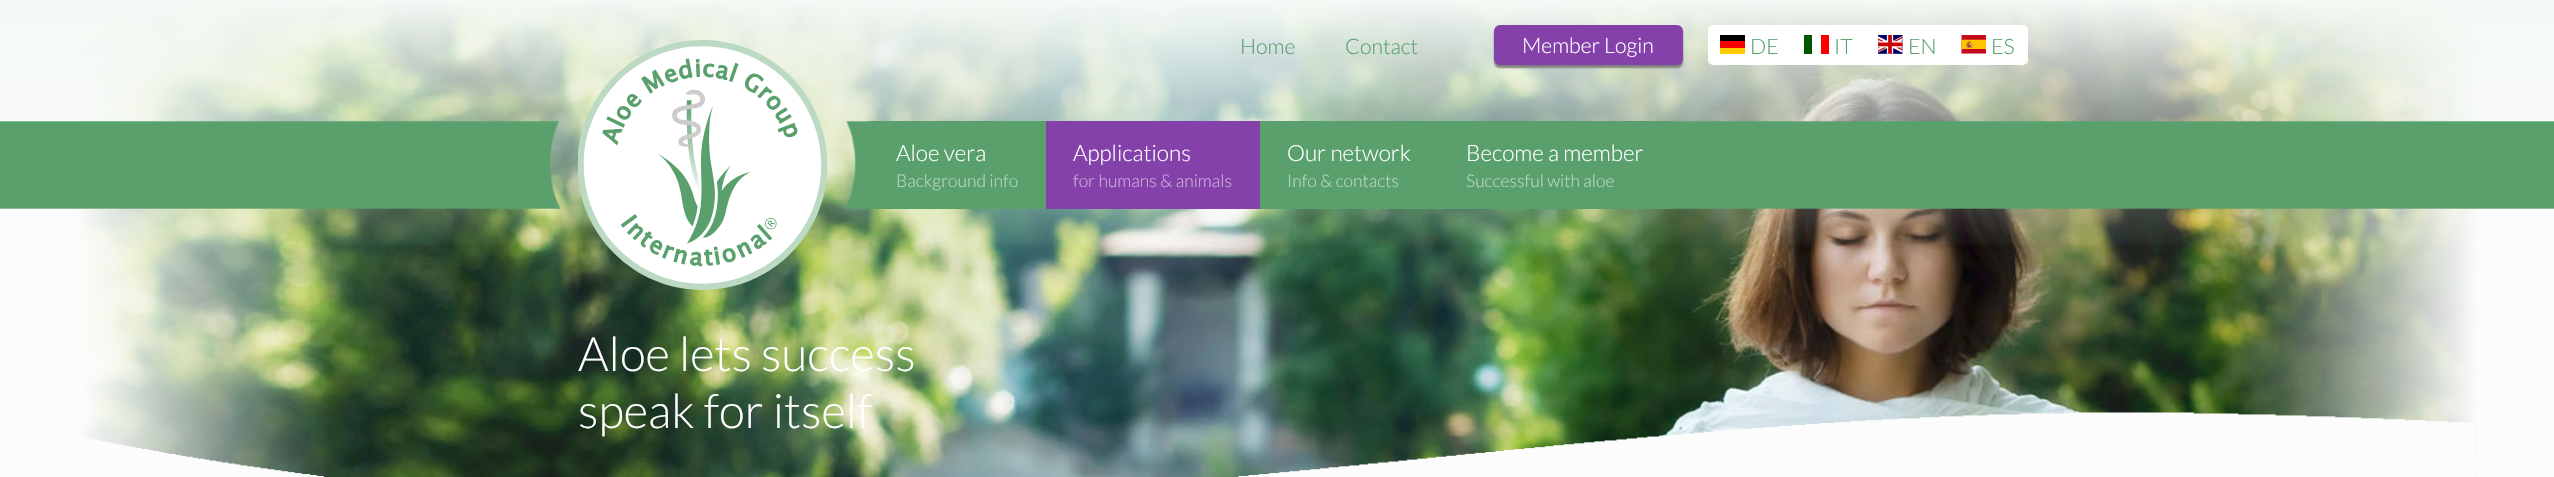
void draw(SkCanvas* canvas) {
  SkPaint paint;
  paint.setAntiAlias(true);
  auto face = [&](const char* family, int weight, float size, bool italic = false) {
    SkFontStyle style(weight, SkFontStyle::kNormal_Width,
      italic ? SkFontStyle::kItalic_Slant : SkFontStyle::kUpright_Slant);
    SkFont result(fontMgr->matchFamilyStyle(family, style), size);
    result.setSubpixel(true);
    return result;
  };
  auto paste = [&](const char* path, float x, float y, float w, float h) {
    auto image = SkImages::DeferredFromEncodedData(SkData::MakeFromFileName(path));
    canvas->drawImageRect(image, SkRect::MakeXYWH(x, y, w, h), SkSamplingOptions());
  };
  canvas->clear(0xfffcfcfc);
  paste("img/6.png", 78, 1, 2400, 476);
  {
    const SkColor colors[] = {0x00f4f9f5, 0xfff4f9f5};
    const float stops[] = {0, 1};
    const SkPoint ends[] = {{1278, 250}, {1278, 0}};
    paint.setShader(SkGradientShader::MakeLinear(ends, colors, stops, 2, SkTileMode::kClamp));
    paint.setAlpha(255);
  }
  canvas->drawRect(SkRect::MakeXYWH(0, 0, 2554, 245), paint);
  paint.setShader(nullptr);
  paint.setColor(0xff808080);
  paint.setMaskFilter(SkMaskFilter::MakeBlur(kNormal_SkBlurStyle, 1));
  canvas->drawRoundRect(SkRect::MakeXYWH(1494, 28, 189, 40), 6, 6, paint);
  paint.setMaskFilter(nullptr);
  paint.setColor(0xff8541aa);
  canvas->drawRoundRect(SkRect::MakeXYWH(1494, 25, 189, 40), 6, 6, paint);
  paint.setColor(0xffffffff);
  canvas->drawRoundRect(SkRect::MakeXYWH(1708, 25, 320, 40), 5, 5, paint);
  {
    const struct { float x, y, w, h; SkColor color; } items[] = {
      {1720, 48, 25, 6, 0xffffcc00},
      {1720, 35, 25, 6, 0xff000000},
      {1720, 41, 25, 7, 0xffff0000},
      {1804, 35, 8, 19, 0xff005700},
      {1821, 35, 8, 19, 0xfffc0000},
    };
    for (auto [x, y, w, h, color] : items) {
      paint.setColor(color);
      canvas->drawRect(SkRect::MakeXYWH(x, y, w, h), paint);
    }
  }
  paste("img/1.png", 1878, 35, 25, 19);
  paste("img/2.png", 1961, 35, 25, 19);
  paste("img/3.png", 0, 121, 560, 88);
  paste("img/4.png", 578, 40, 250, 250);
  paste("img/5.png", 845, 121, 1709, 88);
  paint.setColor(0xff59a06d);
  canvas->drawRect(SkRect::MakeXYWH(869, 121, 802, 88), paint);
  paint.setColor(0xff8541aa);
  canvas->drawRect(SkRect::MakeXYWH(1046, 121, 214, 88), paint);
  auto f0 = face("Lato", 300, 21.25f);
  paint.setColor(0xff59a06d);
  canvas->drawString("Home", 1240, 54, f0, paint);
  canvas->drawString("Contact", 1345, 54, f0, paint);
  paint.setColor(0xffffffff);
  canvas->drawString("Member Login", 1522, 53, f0, paint);
  paint.setColor(0xff59a06d);
  {
    const struct { const char* s; float x, y; } items[] = {
      {"DE", 1750, 54},
      {"IT", 1834, 54},
      {"EN", 1908, 54},
      {"ES", 1991, 54},
    };
    for (auto [s, x, y] : items) {
      canvas->drawString(s, x, y, f0, paint);
    }
  }
  auto f1 = face("Lato", 300, 22.5f);
  paint.setColor(0xffffffff);
  canvas->drawString("Aloe vera", 896, 161, f1, paint);
  auto f2 = face("Lato", 300, 17.5f);
  paint.setColor(0xffbdd9c5);
  canvas->drawString("Background info", 896, 187, f2, paint);
  paint.setColor(0xffffffff);
  canvas->drawString("Applications", 1073, 161, f1, paint);
  paint.setColor(0xffceb3dd);
  canvas->drawString("for humans & animals", 1073, 187, f2, paint);
  paint.setColor(0xffffffff);
  canvas->drawString("Our network", 1287, 161, f1, paint);
  paint.setColor(0xffbdd9c5);
  canvas->drawString("Info & contacts", 1287, 187, f2, paint);
  paint.setColor(0xffffffff);
  canvas->drawString("Become a member", 1466, 161, f1, paint);
  paint.setColor(0xffbdd9c5);
  canvas->drawString("Successful with aloe", 1466, 187, f2, paint);
  auto f3 = face("Lato", 300, 47.5f);
  paint.setColor(0xffffffff);
  canvas->drawString("Aloe lets success", 578, 371, f3, paint);
  canvas->drawString("speak for itself", 578, 428, f3, paint);
  paste("img/7.png", 82, 412, 2392, 65);
}
